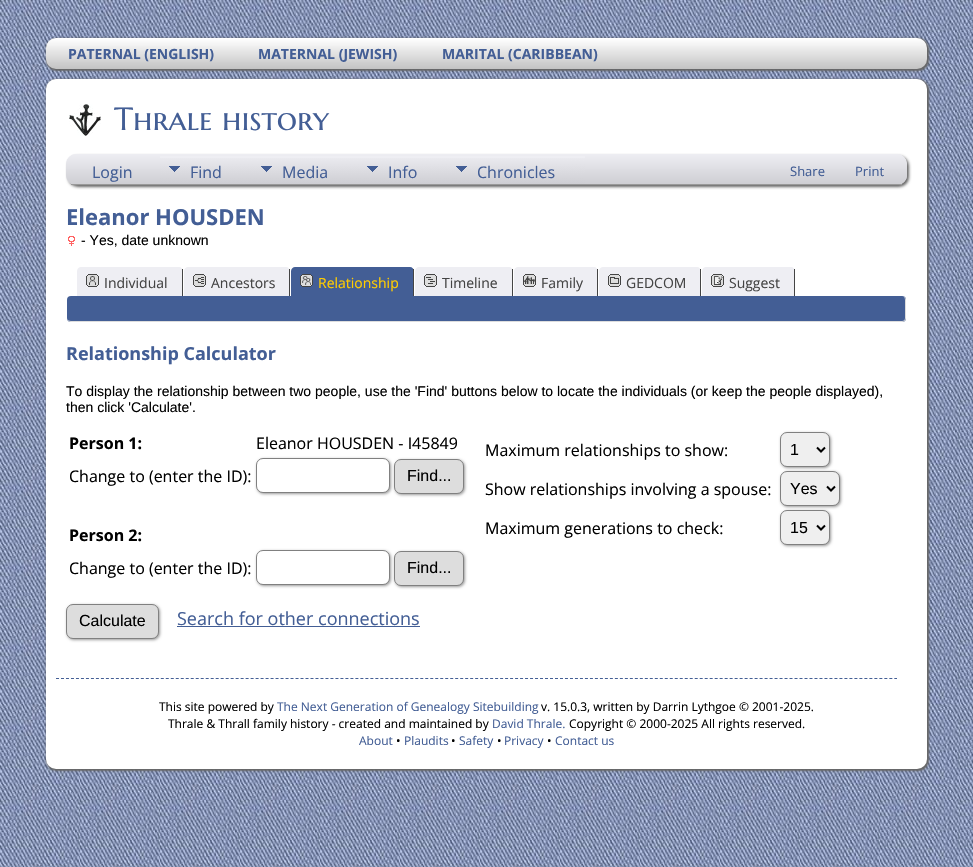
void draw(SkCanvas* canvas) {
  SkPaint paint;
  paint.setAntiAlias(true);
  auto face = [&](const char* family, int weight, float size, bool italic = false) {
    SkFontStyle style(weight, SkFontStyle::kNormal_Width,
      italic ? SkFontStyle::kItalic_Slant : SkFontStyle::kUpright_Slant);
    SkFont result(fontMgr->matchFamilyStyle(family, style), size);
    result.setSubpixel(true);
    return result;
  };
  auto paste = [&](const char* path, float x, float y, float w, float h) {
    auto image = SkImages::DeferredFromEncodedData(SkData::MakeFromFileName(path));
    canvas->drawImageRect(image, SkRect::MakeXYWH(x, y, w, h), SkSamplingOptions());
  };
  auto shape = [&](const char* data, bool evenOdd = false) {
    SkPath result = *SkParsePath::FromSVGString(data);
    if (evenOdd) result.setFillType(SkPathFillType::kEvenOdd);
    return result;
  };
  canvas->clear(0xffffffff);
  paste("img/1.png", 0, 0, 973, 867);
  paint.setColor(0xff666666);
  paint.setMaskFilter(SkMaskFilter::MakeBlur(kNormal_SkBlurStyle, 1));
  canvas->drawRoundRect(SkRect::MakeXYWH(46, 38, 883, 33), 11, 11, paint);
  paint.setMaskFilter(nullptr);
  paste("img/2.png", 46, 38, 881, 31);
  paint.setMaskFilter(SkMaskFilter::MakeBlur(kNormal_SkBlurStyle, 1));
  canvas->drawRoundRect(SkRect::MakeXYWH(46, 79, 883, 692), 11, 11, paint);
  paint.setMaskFilter(nullptr);
  paint.setColor(0xffffffff);
  canvas->drawRoundRect(SkRect::MakeXYWH(46, 79, 881, 690), 10, 10, paint);
  paste("img/3.png", 69, 104, 32, 32);
  paint.setColor(0xff666666);
  paint.setMaskFilter(SkMaskFilter::MakeBlur(kNormal_SkBlurStyle, 1.5f));
  canvas->drawRoundRect(SkRect::MakeXYWH(68, 156, 841, 31), 10, 10, paint);
  paint.setMaskFilter(nullptr);
  paint.setColor(0xffeeeef3);
  canvas->drawRoundRect(SkRect::MakeXYWH(66, 154, 841, 31), 10, 10, paint);
  canvas->save();
  canvas->clipPath(shape("M76 154H897C902.5 154 907 158.5 907 164V175C907 180.5 902.5 185 897 185H76C70.5 185 66 180.5 66 175V164C66 158.5 70.5 154 76 154Z"), true);
  {
    const SkColor colors[] = {0xffeeeef3, 0xffceced3};
    const float stops[] = {0, 1};
    const SkPoint ends[] = {{487, 154}, {487, 184}};
    paint.setShader(SkGradientShader::MakeLinear(ends, colors, stops, 2, SkTileMode::kClamp));
    paint.setAlpha(255);
  }
  canvas->drawPath(shape("M76 154H897C902.5 154 907 158.5 907 164V184H66V164C66 158.5 70.5 154 76 154Z"), paint);
  canvas->restore();
  paint.setShader(nullptr);
  paint.setColor(0xff999999);
  canvas->drawRect(SkRect::MakeXYWH(71, 184, 831, 1), paint);
  paint.setColor(0xffeeeef3);
  canvas->drawRect(SkRect::MakeXYWH(160, 156, 425, 2), paint);
  paste("img/4.png", 160, 158, 92, 26);
  paste("img/5.png", 252, 158, 106, 26);
  paste("img/6.png", 358, 158, 89, 26);
  paste("img/7.png", 447, 158, 138, 26);
  paste("img/8.png", 68, 236, 7, 10);
  canvas->drawPath(shape("M81 267H179C181 267 183 269 183 271V296H77V271C77 269 79 267 81 267Z"), paint);
  paint.setColor(0xff444444);
  canvas->drawRect(SkRect::MakeXYWH(182, 269, 1, 27), paint);
  paste("img/9.png", 86, 274, 13, 13);
  paint.setColor(0xffeeeef3);
  canvas->drawPath(shape("M188 267H286C288 267 290 269 290 271V296H184V271C184 269 186 267 188 267Z"), paint);
  paint.setColor(0xff444444);
  canvas->drawRect(SkRect::MakeXYWH(289, 269, 1, 27), paint);
  paste("img/10.png", 193, 274, 13, 13);
  paint.setColor(0xff435e95);
  canvas->drawPath(shape("M295 267H410C412 267 414 269 414 271V296H291V271C291 269 293 267 295 267Z"), paint);
  paint.setColor(0xff444444);
  canvas->drawRect(SkRect::MakeXYWH(413, 269, 1, 27), paint);
  paste("img/11.png", 300, 274, 13, 13);
  paint.setColor(0xffeeeef3);
  canvas->drawPath(shape("M419 267H509C511 267 513 269 513 271V296H415V271C415 269 417 267 419 267Z"), paint);
  paint.setColor(0xff444444);
  canvas->drawRect(SkRect::MakeXYWH(512, 269, 1, 27), paint);
  paste("img/12.png", 424, 274, 13, 13);
  paint.setColor(0xffeeeef3);
  canvas->drawPath(shape("M518 267H594C596 267 598 269 598 271V296H514V271C514 269 516 267 518 267Z"), paint);
  paint.setColor(0xff444444);
  canvas->drawRect(SkRect::MakeXYWH(597, 269, 1, 27), paint);
  paste("img/13.png", 523, 274, 13, 13);
  paint.setColor(0xffeeeef3);
  canvas->drawPath(shape("M603 267H697C699 267 701 269 701 271V296H599V271C599 269 601 267 603 267Z"), paint);
  paint.setColor(0xff444444);
  canvas->drawRect(SkRect::MakeXYWH(700, 269, 1, 27), paint);
  paste("img/14.png", 608, 274, 13, 13);
  paint.setColor(0xffeeeef3);
  canvas->drawPath(shape("M706 267H791C793 267 795 269 795 271V296H702V271C702 269 704 267 706 267Z"), paint);
  paint.setColor(0xff444444);
  canvas->drawRect(SkRect::MakeXYWH(794, 269, 1, 27), paint);
  paste("img/15.png", 711, 274, 13, 13);
  paint.setColor(0xff435e95);
  canvas->drawRoundRect(SkRect::MakeXYWH(67, 296, 839, 26), 4, 4, paint);
  paint.setColor(0xffdddddd);
  canvas->drawPath(shape("M71 296H902C904 296 906 298 906 300V318C906 320 904 322 902 322H71C69 322 67 320 67 318V300C67 298 69 296 71 296ZM71 296H902C904 296 905 298 905 300V318C905 320 904 321 902 321H71C69 321 67 320 67 318V300C67 298 69 296 71 296Z", true), paint);
  paint.setColor(0xff999999);
  paint.setMaskFilter(SkMaskFilter::MakeBlur(kNormal_SkBlurStyle, 1.5f));
  canvas->drawRoundRect(SkRect::MakeXYWH(257, 459, 134, 35), 7, 7, paint);
  paint.setMaskFilter(nullptr);
  paint.setColor(0xffffffff);
  canvas->drawRoundRect(SkRect::MakeXYWH(256.5f, 458.5f, 133, 34), 6.5f, 6.5f, paint);
  paint.setStroke(true);
  paint.setStrokeWidth(1);
  paint.setColor(0xff808080);
  canvas->drawRoundRect(SkRect::MakeXYWH(256.5f, 458.5f, 133, 34), 6.5f, 6.5f, paint);
  paint.setStroke(false);
  paint.setColor(0xff999999);
  paint.setMaskFilter(SkMaskFilter::MakeBlur(kNormal_SkBlurStyle, 1.5f));
  canvas->drawRoundRect(SkRect::MakeXYWH(395, 460, 70, 35), 7, 7, paint);
  paint.setMaskFilter(nullptr);
  paint.setColor(0xffdddddd);
  canvas->drawRoundRect(SkRect::MakeXYWH(394.5f, 459.5f, 69, 34), 6.5f, 6.5f, paint);
  paint.setStroke(true);
  paint.setColor(0xff808080);
  canvas->drawRoundRect(SkRect::MakeXYWH(394.5f, 459.5f, 69, 34), 6.5f, 6.5f, paint);
  paint.setStroke(false);
  paint.setColor(0xff999999);
  paint.setMaskFilter(SkMaskFilter::MakeBlur(kNormal_SkBlurStyle, 1.5f));
  canvas->drawRoundRect(SkRect::MakeXYWH(257, 551, 134, 35), 7, 7, paint);
  paint.setMaskFilter(nullptr);
  paint.setColor(0xffffffff);
  canvas->drawRoundRect(SkRect::MakeXYWH(256.5f, 550.5f, 133, 34), 6.5f, 6.5f, paint);
  paint.setStroke(true);
  paint.setColor(0xff808080);
  canvas->drawRoundRect(SkRect::MakeXYWH(256.5f, 550.5f, 133, 34), 6.5f, 6.5f, paint);
  paint.setStroke(false);
  paint.setColor(0xff999999);
  paint.setMaskFilter(SkMaskFilter::MakeBlur(kNormal_SkBlurStyle, 1.5f));
  canvas->drawRoundRect(SkRect::MakeXYWH(395, 552, 70, 35), 7, 7, paint);
  paint.setMaskFilter(nullptr);
  paint.setColor(0xffdddddd);
  canvas->drawRoundRect(SkRect::MakeXYWH(394.5f, 551.5f, 69, 34), 6.5f, 6.5f, paint);
  paint.setStroke(true);
  paint.setColor(0xff808080);
  canvas->drawRoundRect(SkRect::MakeXYWH(394.5f, 551.5f, 69, 34), 6.5f, 6.5f, paint);
  paint.setStroke(false);
  paint.setColor(0xff999999);
  paint.setMaskFilter(SkMaskFilter::MakeBlur(kNormal_SkBlurStyle, 1.5f));
  canvas->drawRoundRect(SkRect::MakeXYWH(781, 433, 50, 35), 7, 7, paint);
  paint.setMaskFilter(nullptr);
  paint.setColor(0xffefefef);
  canvas->drawRoundRect(SkRect::MakeXYWH(780.5f, 432.5f, 49, 34), 6.5f, 6.5f, paint);
  paint.setStroke(true);
  paint.setColor(0xff808080);
  canvas->drawRoundRect(SkRect::MakeXYWH(780.5f, 432.5f, 49, 34), 6.5f, 6.5f, paint);
  paint.setStrokeWidth(2);
  paint.setColor(0xff000000);
  canvas->drawPath(shape("M817 447.5L821 451.5L825 447.5"), paint);
  paint.setStroke(false);
  paint.setColor(0xff999999);
  paint.setMaskFilter(SkMaskFilter::MakeBlur(kNormal_SkBlurStyle, 1.5f));
  canvas->drawRoundRect(SkRect::MakeXYWH(781, 472, 60, 35), 7, 7, paint);
  paint.setMaskFilter(nullptr);
  paint.setColor(0xffefefef);
  canvas->drawRoundRect(SkRect::MakeXYWH(780.5f, 471.5f, 59, 34), 6.5f, 6.5f, paint);
  paint.setStroke(true);
  paint.setStrokeWidth(1);
  paint.setColor(0xff808080);
  canvas->drawRoundRect(SkRect::MakeXYWH(780.5f, 471.5f, 59, 34), 6.5f, 6.5f, paint);
  paint.setStrokeWidth(2);
  paint.setColor(0xff000000);
  canvas->drawPath(shape("M827 486.5L831 490.5L835 486.5"), paint);
  paint.setStroke(false);
  paint.setColor(0xff999999);
  paint.setMaskFilter(SkMaskFilter::MakeBlur(kNormal_SkBlurStyle, 1.5f));
  canvas->drawRoundRect(SkRect::MakeXYWH(781, 511, 50, 35), 7, 7, paint);
  paint.setMaskFilter(nullptr);
  paint.setColor(0xffefefef);
  canvas->drawRoundRect(SkRect::MakeXYWH(780.5f, 510.5f, 49, 34), 6.5f, 6.5f, paint);
  paint.setStroke(true);
  paint.setStrokeWidth(1);
  paint.setColor(0xff808080);
  canvas->drawRoundRect(SkRect::MakeXYWH(780.5f, 510.5f, 49, 34), 6.5f, 6.5f, paint);
  paint.setStrokeWidth(2);
  paint.setColor(0xff000000);
  canvas->drawPath(shape("M817 525.5L821 529.5L825 525.5"), paint);
  paint.setStroke(false);
  paint.setColor(0xff999999);
  paint.setMaskFilter(SkMaskFilter::MakeBlur(kNormal_SkBlurStyle, 1.5f));
  canvas->drawRoundRect(SkRect::MakeXYWH(67, 605, 93, 35), 7, 7, paint);
  paint.setMaskFilter(nullptr);
  paint.setColor(0xffdddddd);
  canvas->drawRoundRect(SkRect::MakeXYWH(66.5f, 604.5f, 92, 34), 6.5f, 6.5f, paint);
  paint.setStroke(true);
  paint.setStrokeWidth(1);
  paint.setColor(0xff808080);
  canvas->drawRoundRect(SkRect::MakeXYWH(66.5f, 604.5f, 92, 34), 6.5f, 6.5f, paint);
  paint.setStroke(false);
  paint.setColor(0xff435e95);
  canvas->drawRect(SkRect::MakeXYWH(177, 626, 243, 1), paint);
  paint.setStroke(true);
  paint.setPathEffect(SkDashPathEffect::Make({{3, 1.99f}}, 0));
  canvas->drawPath(shape("M56 678.5H897"), paint);
  paint.setPathEffect(nullptr);
  auto f0 = face("Open Sans", 700, 14);
  paint.setStroke(false);
  {
    const struct { const char* s; float x, y; } items[] = {
      {"PATERNAL (ENGLISH)", 68, 59},
      {"MATERNAL (JEWISH)", 258, 59},
      {"MARITAL (CARIBBEAN)", 442, 59},
    };
    for (auto [s, x, y] : items) {
      canvas->drawString(s, x, y, f0, paint);
    }
  }
  auto f1 = face("Marcellus SC", 400, 32);
  canvas->drawString("Thrale history", 114, 130, f1, paint);
  auto f2 = face("Open Sans", 400, 16);
  {
    const struct { const char* s; float x, y; } items[] = {
      {"Login", 92, 178},
      {"Find", 190, 178},
      {"Media", 282, 178},
      {"Info", 388, 178},
      {"Chronicles", 477, 178},
    };
    for (auto [s, x, y] : items) {
      canvas->drawString(s, x, y, f2, paint);
    }
  }
  auto f3 = face("Open Sans", 400, 13);
  canvas->drawString("Share", 790, 176, f3, paint);
  canvas->drawString("Print", 855, 176, f3, paint);
  auto f4 = face("Open Sans", 700, 22);
  canvas->drawString("Eleanor HOUSDEN", 66, 225, f4, paint);
  auto f5 = face("Liberation Sans", 400, 14);
  paint.setColor(0xff000000);
  canvas->drawString("- Yes, date unknown", 81, 245, f5, paint);
  auto f6 = face("Open Sans", 400, 14);
  paint.setColor(0xff444444);
  canvas->drawString("Individual", 104, 288, f6, paint);
  canvas->drawString("Ancestors", 211, 288, f6, paint);
  paint.setColor(0xffffcc00);
  canvas->drawString("Relationship", 318, 288, f6, paint);
  paint.setColor(0xff444444);
  {
    const struct { const char* s; float x, y; } items[] = {
      {"Timeline", 442, 288},
      {"Family", 541, 288},
      {"GEDCOM", 626, 288},
      {"Suggest", 729, 288},
    };
    for (auto [s, x, y] : items) {
      canvas->drawString(s, x, y, f6, paint);
    }
  }
  auto f7 = face("Open Sans", 700, 18);
  paint.setColor(0xff435e95);
  canvas->drawString("Relationship Calculator", 66, 360, f7, paint);
  paint.setColor(0xff000000);
  canvas->drawString("To display the relationship between two people, use the 'Find' buttons below to locate the individuals (or keep the people displayed),", 66, 396, f5, paint);
  canvas->drawString("then click 'Calculate'.", 66, 412, f5, paint);
  auto f8 = face("Open Sans", 700, 16);
  canvas->drawString("Person 1:", 69, 449, f8, paint);
  canvas->drawString("Eleanor HOUSDEN - I45849", 256, 449, f2, paint);
  canvas->drawString("Change to (enter the ID):", 69, 482, f2, paint);
  auto f9 = face("Liberation Sans", 400, 16);
  canvas->drawString("Find...", 407, 481, f9, paint);
  canvas->drawString("Person 2:", 69, 541, f8, paint);
  canvas->drawString("Change to (enter the ID):", 69, 574, f2, paint);
  canvas->drawString("Find...", 407, 573, f9, paint);
  canvas->drawString("Maximum relationships to show:", 485, 456, f2, paint);
  canvas->drawString("1", 790, 455, f9, paint);
  canvas->drawString("Show relationships involving a spouse:", 485, 495, f2, paint);
  canvas->drawString("Yes", 790, 494, f9, paint);
  canvas->drawString("Maximum generations to check:", 485, 534, f2, paint);
  canvas->drawString("15", 790, 533, f9, paint);
  canvas->drawString("Calculate", 79, 626, f9, paint);
  auto f10 = face("Open Sans", 400, 18);
  paint.setColor(0xff435e95);
  canvas->drawString("Search for other connections", 177, 625, f10, paint);
  auto f11 = face("Open Sans", 400, 12);
  paint.setColor(0xff000000);
  canvas->drawString("This site powered by", 159, 711, f11, paint);
  paint.setColor(0xff435e95);
  canvas->drawString("The Next Generation of Genealogy Sitebuilding", 277, 711, f11, paint);
  paint.setColor(0xff000000);
  canvas->drawString("v. 15.0.3, written by Darrin Lythgoe © 2001-2025.", 541, 711, f11, paint);
  canvas->drawString("Thrale & Thrall family history - created and maintained by", 168, 728, f11, paint);
  paint.setColor(0xff435e95);
  canvas->drawString("David Thrale.", 492, 728, f11, paint);
  paint.setColor(0xff000000);
  canvas->drawString("Copyright © 2000-2025 All rights reserved.", 569, 728, f11, paint);
  paint.setColor(0xff435e95);
  canvas->drawString("About", 359, 745, f11, paint);
  paint.setColor(0xff000000);
  canvas->drawString("•", 396, 745, f11, paint);
  paint.setColor(0xff435e95);
  canvas->drawString("Plaudits", 404, 745, f11, paint);
  paint.setColor(0xff000000);
  canvas->drawString("•", 451, 745, f11, paint);
  paint.setColor(0xff435e95);
  canvas->drawString("Safety", 459, 745, f11, paint);
  paint.setColor(0xff000000);
  canvas->drawString("•", 497, 745, f11, paint);
  paint.setColor(0xff435e95);
  canvas->drawString("Privacy", 504, 745, f11, paint);
  paint.setColor(0xff000000);
  canvas->drawString("•", 547, 745, f11, paint);
  paint.setColor(0xff435e95);
  canvas->drawString("Contact us", 555, 745, f11, paint);
}
